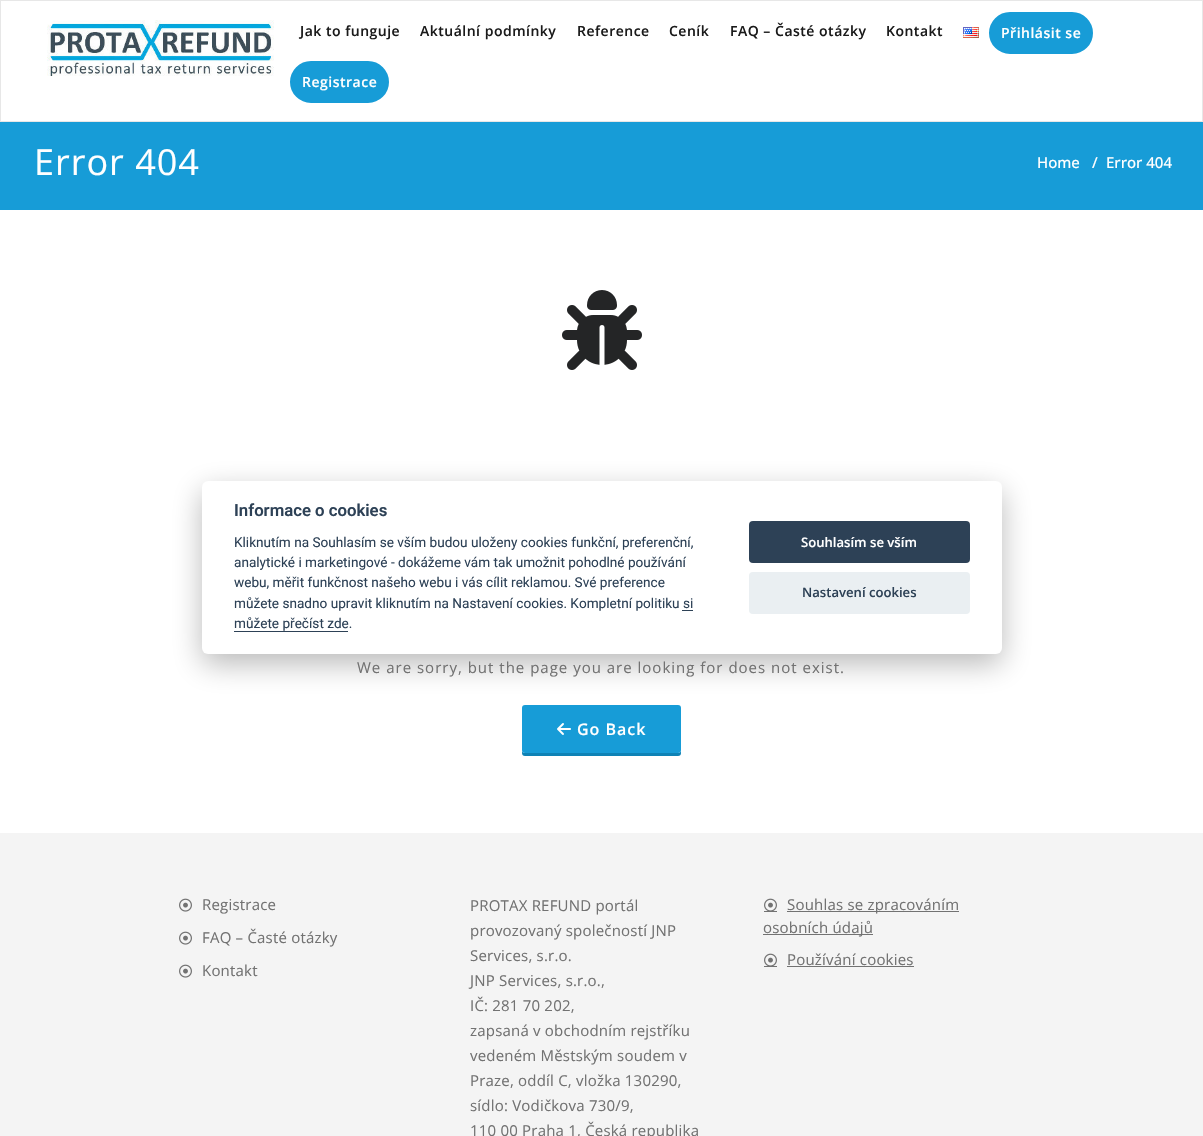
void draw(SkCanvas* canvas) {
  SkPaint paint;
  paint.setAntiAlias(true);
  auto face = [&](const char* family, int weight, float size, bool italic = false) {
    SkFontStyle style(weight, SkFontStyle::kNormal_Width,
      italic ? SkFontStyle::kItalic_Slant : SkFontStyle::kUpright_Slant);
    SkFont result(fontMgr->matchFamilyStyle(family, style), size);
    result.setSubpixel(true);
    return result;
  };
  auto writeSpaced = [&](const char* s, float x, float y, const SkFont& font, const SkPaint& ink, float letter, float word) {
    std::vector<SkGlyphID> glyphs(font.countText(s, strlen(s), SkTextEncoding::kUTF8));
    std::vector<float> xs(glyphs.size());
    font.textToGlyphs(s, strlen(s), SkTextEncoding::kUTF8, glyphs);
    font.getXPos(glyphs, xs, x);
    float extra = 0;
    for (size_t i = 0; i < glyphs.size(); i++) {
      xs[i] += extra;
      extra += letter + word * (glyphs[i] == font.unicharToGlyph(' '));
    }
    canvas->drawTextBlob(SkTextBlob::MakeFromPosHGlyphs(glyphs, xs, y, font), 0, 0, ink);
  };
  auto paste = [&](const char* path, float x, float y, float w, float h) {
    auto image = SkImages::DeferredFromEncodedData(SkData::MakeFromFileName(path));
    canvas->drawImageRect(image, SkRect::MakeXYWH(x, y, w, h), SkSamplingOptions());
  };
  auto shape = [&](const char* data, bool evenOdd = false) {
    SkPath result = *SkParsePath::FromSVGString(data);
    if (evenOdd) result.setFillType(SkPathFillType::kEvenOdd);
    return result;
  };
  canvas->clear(0xffffffff);
  paint.setStroke(true);
  paint.setStrokeWidth(1);
  paint.setColor(0xffe7e7e7);
  canvas->drawRect(SkRect::MakeXYWH(0.5f, 0.5f, 1202, 121), paint);
  paste("img/1.png", 47, 20, 227, 56);
  paste("img/2.png", 963, 27, 16, 11);
  paint.setStroke(false);
  paint.setColor(0xff179cd7);
  canvas->drawRoundRect(SkRect::MakeXYWH(990, 13, 102, 40), 20, 20, paint);
  paint.setStroke(true);
  paint.setStrokeWidth(2);
  canvas->drawRoundRect(SkRect::MakeXYWH(990, 13, 102, 40), 20, 20, paint);
  paint.setStroke(false);
  canvas->drawRoundRect(SkRect::MakeXYWH(291, 62, 97, 40), 20, 20, paint);
  paint.setStroke(true);
  canvas->drawRoundRect(SkRect::MakeXYWH(291, 62, 97, 40), 20, 20, paint);
  paint.setStroke(false);
  canvas->drawRect(SkRect::MakeXYWH(0, 122, 1203, 88), paint);
  paint.setColor(0xff0e82b5);
  canvas->drawPath(shape("M522 750V753C522 755 523 756 525 756H678C680 756 681 755 681 753V750C681 752 680 753 678 753H525C523 753 522 752 522 750Z"), paint);
  paint.setColor(0xff179cd7);
  canvas->drawRoundRect(SkRect::MakeXYWH(522, 705, 159, 48), 3, 3, paint);
  paint.setColor(0x47020203);
  paint.setMaskFilter(SkMaskFilter::MakeBlur(kNormal_SkBlurStyle, 15));
  canvas->drawRoundRect(SkRect::MakeXYWH(202, 491, 800, 173), 6, 6, paint);
  paint.setMaskFilter(nullptr);
  paint.setColor(0xffffffff);
  canvas->drawRoundRect(SkRect::MakeXYWH(202, 481, 800, 173), 6, 6, paint);
  paint.setColor(0xff2d4156);
  canvas->drawRect(SkRect::MakeXYWH(682, 610, 11, 1), paint);
  canvas->drawRect(SkRect::MakeXYWH(234, 631, 114, 1), paint);
  canvas->drawRoundRect(SkRect::MakeXYWH(749, 521, 221, 42), 4, 4, paint);
  paint.setColor(0xffeaeff2);
  canvas->drawRoundRect(SkRect::MakeXYWH(749, 572, 221, 42), 4, 4, paint);
  paste("img/3.png", 562, 290, 80, 80);
  paste("img/4.png", 557, 723, 14, 12);
  paint.setColor(0xfff4f4f4);
  canvas->drawRect(SkRect::MakeXYWH(0, 833, 1203, 303), paint);
  paste("img/5.png", 179, 898, 13, 14);
  paste("img/5.png", 179, 931, 13, 14);
  paste("img/5.png", 179, 964, 13, 14);
  paste("img/6.png", 764, 898, 13, 13);
  {
    const struct { float x, y, w, h; SkColor color; } items[] = {
      {764, 911, 13, 1, 0xff727272},
      {787, 911, 172, 1, 0xff727272},
      {763, 934, 110, 1, 0xff727272},
    };
    for (auto [x, y, w, h, color] : items) {
      paint.setColor(color);
      canvas->drawRect(SkRect::MakeXYWH(x, y, w, h), paint);
    }
  }
  paste("img/6.png", 764, 953, 13, 13);
  canvas->drawRect(SkRect::MakeXYWH(764, 966, 13, 1), paint);
  canvas->drawRect(SkRect::MakeXYWH(787, 966, 127, 1), paint);
  auto f0 = face("Open Sans", 600, 14);
  paint.setColor(0xff1b1b1b);
  {
    const struct { const char* s; float x, y; } items[] = {
      {"Jak to funguje", 300, 36},
      {"Aktuální podmínky", 420, 36},
      {"Reference", 577, 36},
      {"Ceník", 669, 36},
      {"FAQ – Časté otázky", 730, 36},
      {"Kontakt", 886, 36},
    };
    for (auto [s, x, y] : items) {
      writeSpaced(s, x, y, f0, paint, 0.5f, 0);
    }
  }
  paint.setColor(0xffffffff);
  writeSpaced("Přihlásit se", 1001, 38, f0, paint, 0.5f, 0);
  writeSpaced("Registrace", 302, 87, f0, paint, 0.5f, 0);
  auto f1 = face("Open Sans", 400, 36);
  writeSpaced("Error 404", 34, 175, f1, paint, 1, 0);
  auto f2 = face("Open Sans", 500, 15);
  {
    const struct { const char* s; float x, y; } items[] = {
      {"Home", 1037, 168},
      {"/", 1092, 168},
      {"Error 404", 1106, 168},
    };
    for (auto [s, x, y] : items) {
      canvas->drawString(s, x, y, f2, paint);
    }
  }
  auto f3 = face("Roboto", 600, 16.75f);
  paint.setColor(0xff2d4156);
  canvas->drawString("Informace o cookies", 234, 516, f3, paint);
  auto f4 = face("Roboto", 400, 13.6f);
  {
    const struct { const char* s; float x, y; } items[] = {
      {"Kliknutím na Souhlasím se vším budou uloženy cookies funkční, preferenční,", 234, 547},
      {"analytické i marketingové - dokážeme vám tak umožnit pohodlné používání", 234, 567},
      {"webu, měřit funkčnost našeho webu i vás cílit reklamou. Své preference", 234, 587},
      {"můžete snadno upravit kliknutím na Nastavení cookies. Kompletní politiku si", 234, 608},
      {"můžete přečíst zde.", 234, 628},
    };
    for (auto [s, x, y] : items) {
      canvas->drawString(s, x, y, f4, paint);
    }
  }
  auto f5 = face("Open Sans", 600, 13.1f);
  paint.setColor(0xffffffff);
  canvas->drawString("Souhlasím se vším", 801, 547, f5, paint);
  paint.setColor(0xff2d4156);
  canvas->drawString("Nastavení cookies", 802, 597, f5, paint);
  auto f6 = face("Open Sans", 400, 15);
  paint.setColor(0xff727272);
  writeSpaced("We are sorry, but the page you are looking for does not exist.", 357, 673, f6, paint, 1, 0);
  auto f7 = face("Open Sans", 600, 16);
  paint.setColor(0xffffffff);
  writeSpaced("Go Back", 577, 735, f7, paint, 1, 0);
  paint.setColor(0xff727272);
  {
    const struct { const char* s; float x, y; } items[] = {
      {"Registrace", 202, 910},
      {"FAQ – Časté otázky", 202, 943},
      {"Kontakt", 202, 976},
      {"PROTAX REFUND portál", 470, 911},
      {"provozovaný společností JNP", 470, 936},
      {"Services, s.r.o.", 470, 961},
      {"JNP Services, s.r.o.,", 470, 986},
      {"IČ: 281 70 202,", 470, 1011},
      {"zapsaná v obchodním rejstříku", 470, 1036},
      {"vedeném Městským soudem v", 470, 1061},
      {"Praze, oddíl C, vložka 130290,", 470, 1086},
      {"sídlo: Vodičkova 730/9,", 470, 1111},
      {"110 00 Praha 1, Česká republika", 470, 1136},
      {"Souhlas se zpracováním", 787, 910},
      {"osobních údajů", 763, 933},
      {"Používání cookies", 787, 965},
    };
    for (auto [s, x, y] : items) {
      writeSpaced(s, x, y, f6, paint, 0.2f, 0);
    }
  }
}
